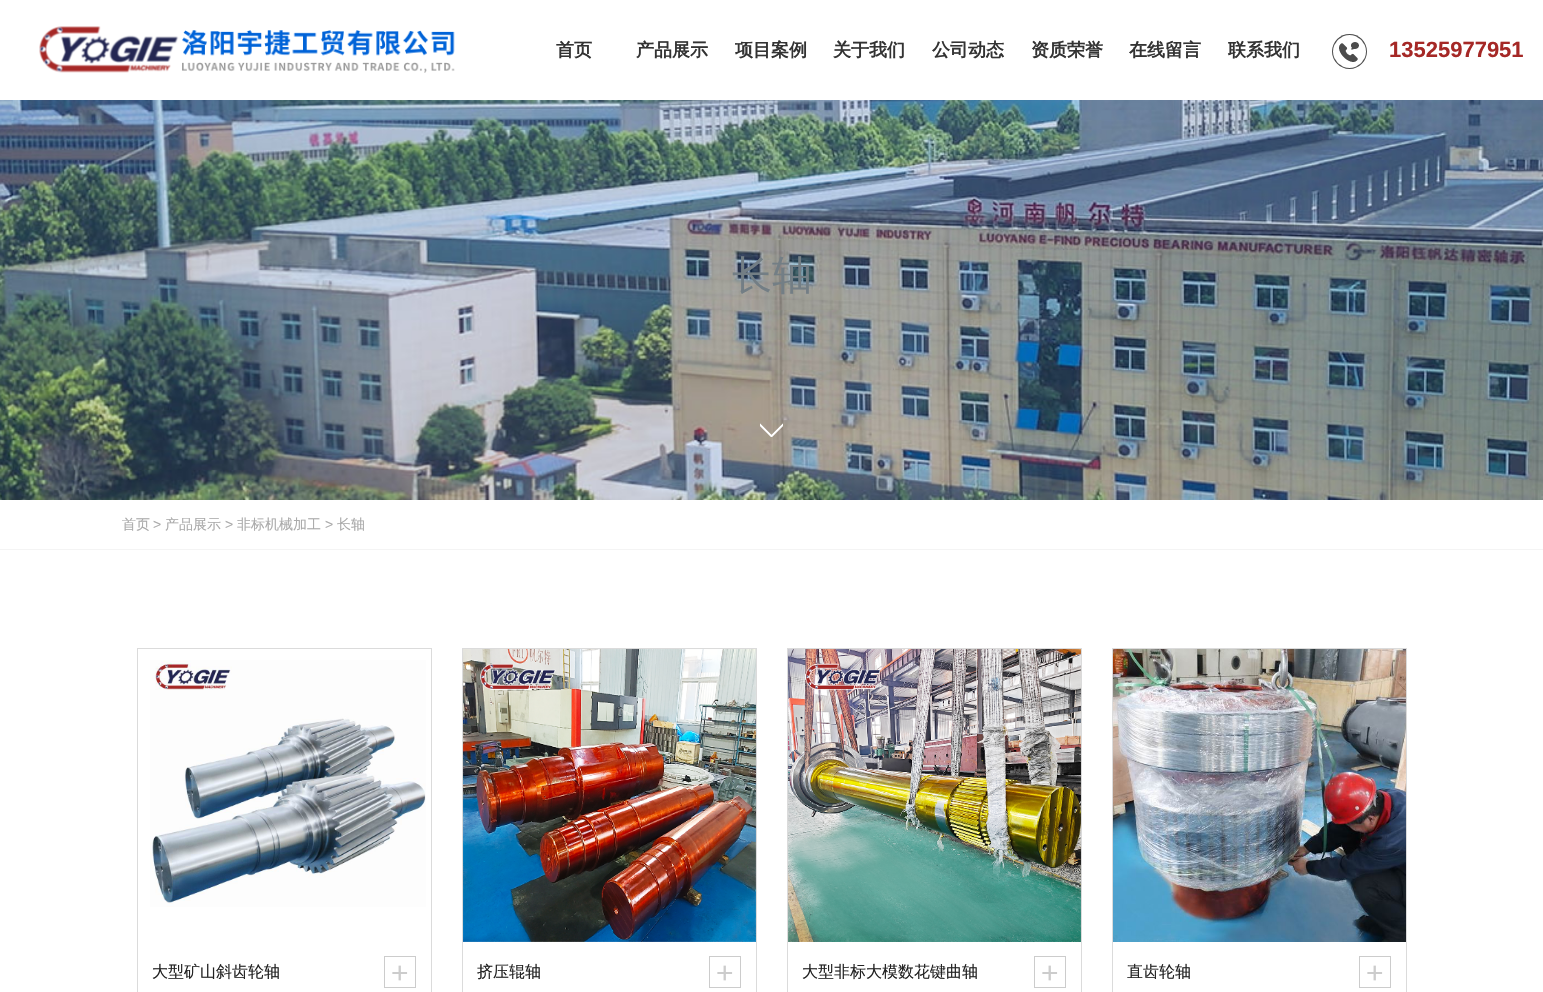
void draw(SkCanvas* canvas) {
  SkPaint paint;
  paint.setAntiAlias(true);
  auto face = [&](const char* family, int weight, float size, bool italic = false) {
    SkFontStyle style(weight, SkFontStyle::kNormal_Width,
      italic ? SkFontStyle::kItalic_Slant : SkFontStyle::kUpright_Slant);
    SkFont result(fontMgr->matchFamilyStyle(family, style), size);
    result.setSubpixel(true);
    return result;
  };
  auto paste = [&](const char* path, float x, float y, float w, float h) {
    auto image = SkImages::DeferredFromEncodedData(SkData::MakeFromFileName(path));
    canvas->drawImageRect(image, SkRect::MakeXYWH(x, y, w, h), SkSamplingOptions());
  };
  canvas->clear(0xffffffff);
  paste("img/1.png", 39, 26, 416, 47);
  paste("img/2.png", 1332, 34, 35, 35);
  paste("img/3.png", 0, 100, 1543, 400);
  paste("img/4.png", 760, 423, 23, 14);
  {
    const struct { float x, y, w, h; SkColor color; } items[] = {
      {0, 549, 1543, 1, 0xfff4f4f4},
      {137, 648, 295, 344, 0xffdbdbdb},
      {138, 649, 293, 343, 0xffffffff},
    };
    for (auto [x, y, w, h, color] : items) {
      paint.setColor(color);
      canvas->drawRect(SkRect::MakeXYWH(x, y, w, h), paint);
    }
  }
  paste("img/5.png", 150, 660, 276, 247);
  paint.setStroke(true);
  paint.setStrokeWidth(1);
  paint.setColor(0xffcccccc);
  canvas->drawRect(SkRect::MakeXYWH(384.5f, 956.5f, 31, 31), paint);
  paint.setStroke(false);
  paint.setColor(0xffdbdbdb);
  canvas->drawRect(SkRect::MakeXYWH(462, 648, 295, 344), paint);
  paste("img/6.png", 463, 649, 293, 293);
  paint.setColor(0xffffffff);
  canvas->drawRect(SkRect::MakeXYWH(463, 942, 293, 50), paint);
  paint.setStroke(true);
  paint.setColor(0xffcccccc);
  canvas->drawRect(SkRect::MakeXYWH(709.5f, 956.5f, 31, 31), paint);
  paint.setStroke(false);
  paint.setColor(0xffdbdbdb);
  canvas->drawRect(SkRect::MakeXYWH(787, 648, 295, 344), paint);
  paste("img/7.png", 788, 649, 293, 293);
  paint.setColor(0xffffffff);
  canvas->drawRect(SkRect::MakeXYWH(788, 942, 293, 50), paint);
  paint.setStroke(true);
  paint.setColor(0xffcccccc);
  canvas->drawRect(SkRect::MakeXYWH(1034.5f, 956.5f, 31, 31), paint);
  paint.setStroke(false);
  paint.setColor(0xffdbdbdb);
  canvas->drawRect(SkRect::MakeXYWH(1112, 648, 295, 344), paint);
  paste("img/8.png", 1113, 649, 293, 293);
  paint.setColor(0xffffffff);
  canvas->drawRect(SkRect::MakeXYWH(1113, 942, 293, 50), paint);
  paint.setStroke(true);
  paint.setColor(0xffcccccc);
  canvas->drawRect(SkRect::MakeXYWH(1359.5f, 956.5f, 31, 31), paint);
  auto f0 = face("WenQuanYi Zen Hei", 700, 18);
  paint.setStroke(false);
  paint.setColor(0xff333333);
  {
    const struct { const char* s; float x, y; } items[] = {
      {"首页", 556, 56},
      {"产品展示", 636, 56},
      {"项目案例", 735, 56},
      {"关于我们", 833, 56},
      {"公司动态", 932, 56},
      {"资质荣誉", 1031, 56},
      {"在线留言", 1129, 56},
      {"联系我们", 1228, 56},
    };
    for (auto [s, x, y] : items) {
      canvas->drawString(s, x, y, f0, paint);
    }
  }
  auto f1 = face("Liberation Sans", 700, 22);
  paint.setColor(0xffa52826);
  canvas->drawString("13525977951", 1389, 57, f1, paint);
  auto f2 = face("WenQuanYi Zen Hei", 500, 40);
  paint.setColor(0xff737e85);
  canvas->drawString("长轴", 732, 289, f2, paint);
  auto f3 = face("WenQuanYi Zen Hei", 500, 14);
  paint.setColor(0xffaaaaaa);
  canvas->drawString("首页", 122, 529, f3, paint);
  auto f4 = face("Liberation Sans", 400, 14);
  canvas->drawString(">", 153, 529, f4, paint);
  canvas->drawString("产品展示", 165, 529, f3, paint);
  canvas->drawString(">", 225, 529, f4, paint);
  canvas->drawString("非标机械加工", 237, 529, f3, paint);
  canvas->drawString(">", 325, 529, f4, paint);
  canvas->drawString("长轴", 337, 529, f3, paint);
  auto f5 = face("WenQuanYi Zen Hei", 500, 16);
  paint.setColor(0xff222222);
  canvas->drawString("大型矿山斜齿轮轴", 152, 977, f5, paint);
  auto f6 = face("Liberation Sans", 400, 30);
  paint.setColor(0xffcccccc);
  canvas->drawString("+", 391, 983, f6, paint);
  paint.setColor(0xff222222);
  canvas->drawString("挤压辊轴", 477, 977, f5, paint);
  paint.setColor(0xffcccccc);
  canvas->drawString("+", 716, 983, f6, paint);
  paint.setColor(0xff222222);
  canvas->drawString("大型非标大模数花键曲轴", 802, 977, f5, paint);
  paint.setColor(0xffcccccc);
  canvas->drawString("+", 1041, 983, f6, paint);
  paint.setColor(0xff222222);
  canvas->drawString("直齿轮轴", 1127, 977, f5, paint);
  paint.setColor(0xffcccccc);
  canvas->drawString("+", 1366, 983, f6, paint);
}
